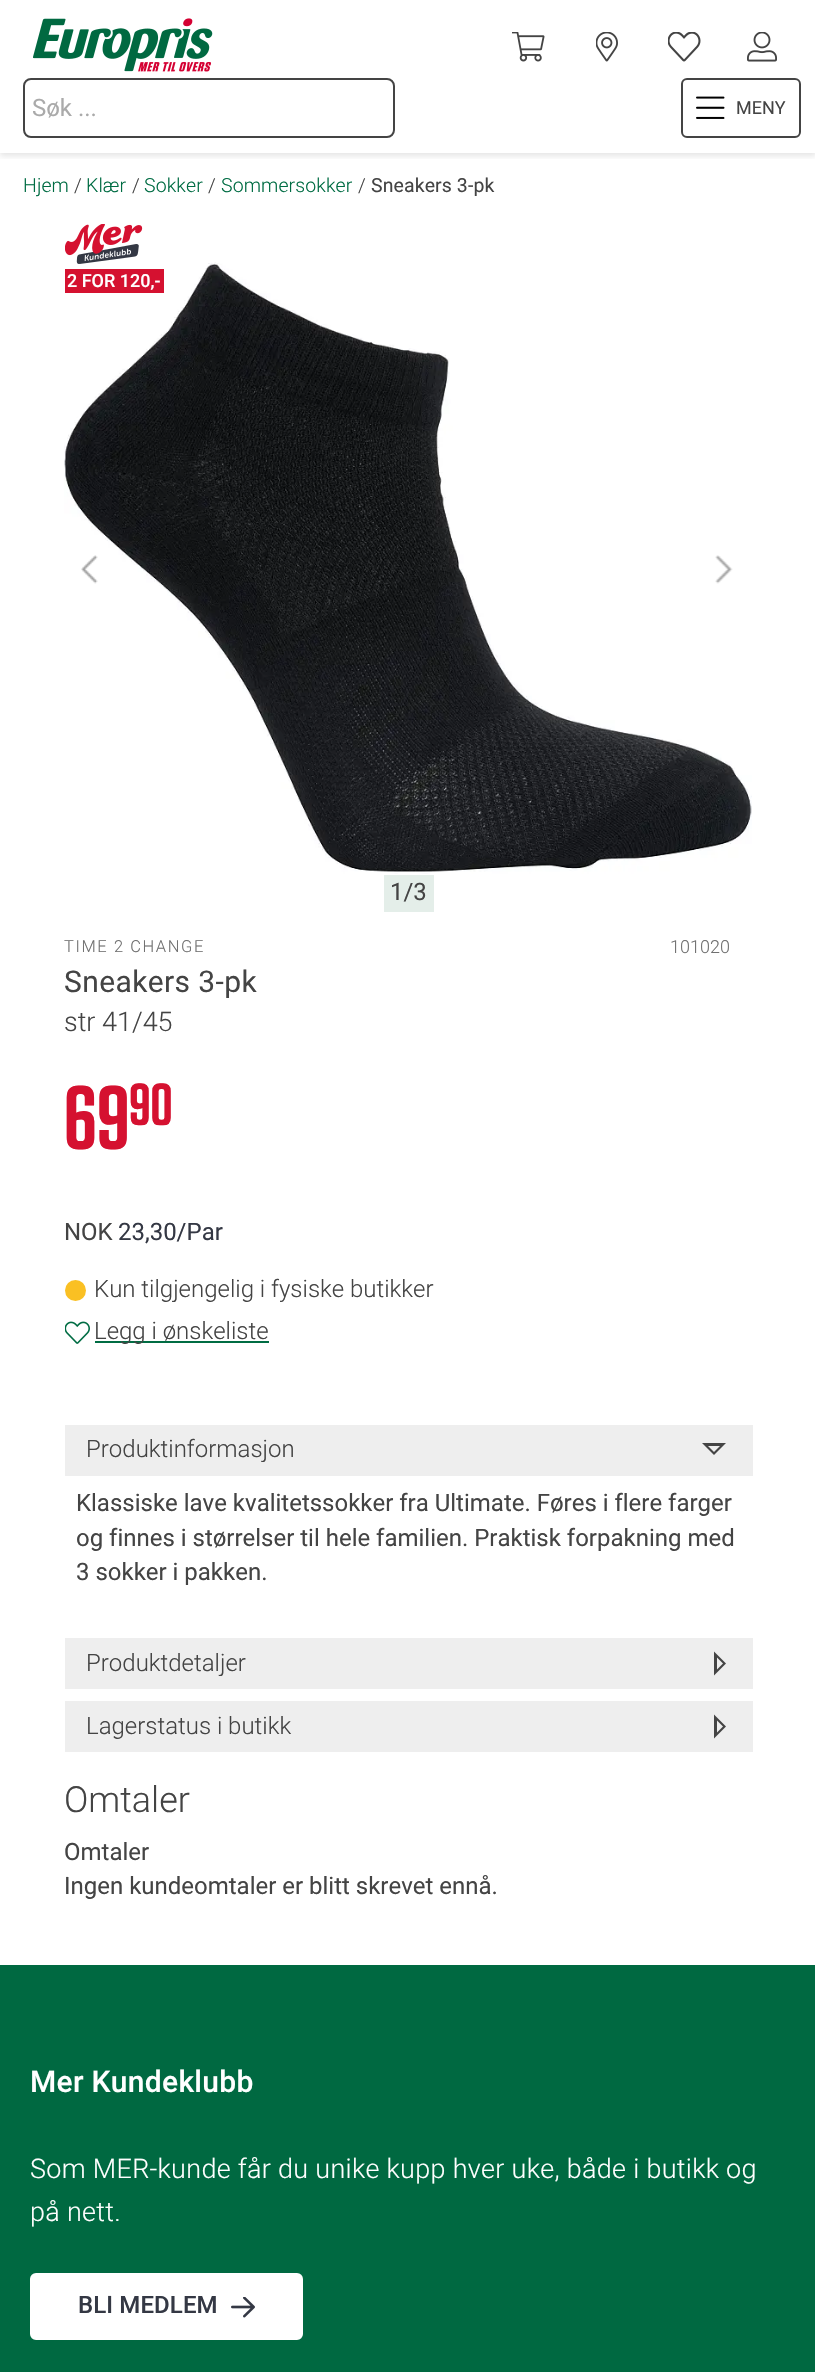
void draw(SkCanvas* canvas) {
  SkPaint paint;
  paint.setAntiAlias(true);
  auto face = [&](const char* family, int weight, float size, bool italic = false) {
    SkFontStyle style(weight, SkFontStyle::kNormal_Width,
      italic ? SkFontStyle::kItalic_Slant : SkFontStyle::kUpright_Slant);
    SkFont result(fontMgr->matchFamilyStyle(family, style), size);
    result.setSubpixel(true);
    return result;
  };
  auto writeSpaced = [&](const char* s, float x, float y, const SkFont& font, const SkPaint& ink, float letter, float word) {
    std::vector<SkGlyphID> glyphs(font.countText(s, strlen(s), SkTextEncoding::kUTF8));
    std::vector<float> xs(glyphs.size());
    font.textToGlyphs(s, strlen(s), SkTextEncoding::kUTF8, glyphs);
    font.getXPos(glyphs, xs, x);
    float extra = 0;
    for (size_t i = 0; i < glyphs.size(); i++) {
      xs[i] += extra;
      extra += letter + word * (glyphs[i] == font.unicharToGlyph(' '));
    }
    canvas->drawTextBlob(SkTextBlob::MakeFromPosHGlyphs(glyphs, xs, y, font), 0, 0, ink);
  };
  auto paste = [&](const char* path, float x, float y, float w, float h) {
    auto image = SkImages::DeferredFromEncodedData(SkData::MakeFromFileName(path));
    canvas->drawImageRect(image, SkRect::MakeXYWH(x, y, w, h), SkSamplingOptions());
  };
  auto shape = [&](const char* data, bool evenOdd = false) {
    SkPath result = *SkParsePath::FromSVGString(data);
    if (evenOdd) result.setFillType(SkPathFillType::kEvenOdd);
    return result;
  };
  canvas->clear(0xffffffff);
  canvas->save();
  canvas->clipRect(SkRect::MakeXYWH(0, 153, 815, 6));
  paint.setColor(0x1a000000);
  paint.setMaskFilter(SkMaskFilter::MakeBlur(kNormal_SkBlurStyle, 3));
  canvas->drawRect(SkRect::MakeXYWH(0, 3, 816, 153), paint);
  paint.setMaskFilter(nullptr);
  canvas->restore();
  paste("img/1.png", 33, 18, 180, 54);
  paste("img/2.png", 512, 32, 33, 30);
  paste("img/3.png", 596, 32, 22, 30);
  paste("img/4.png", 668, 32, 33, 30);
  paste("img/5.png", 747, 32, 30, 30);
  paint.setStroke(true);
  paint.setStrokeWidth(2);
  paint.setColor(0xff444444);
  canvas->drawRoundRect(SkRect::MakeXYWH(24, 79, 370, 58), 7, 7, paint);
  canvas->drawRoundRect(SkRect::MakeXYWH(682, 79, 118, 58), 5, 5, paint);
  paste("img/6.png", 696, 96, 29, 23);
  paste("img/8.png", 64, 262, 688, 612);
  paste("img/7.png", 65, 224, 78, 40);
  paint.setStroke(false);
  paint.setColor(0xffd51130);
  canvas->drawRect(SkRect::MakeXYWH(65, 269, 99, 24), paint);
  paste("img/9.png", 81, 555, 17, 29);
  paste("img/10.png", 715, 555, 18, 29);
  paint.setColor(0xffe4eee9);
  canvas->drawRect(SkRect::MakeXYWH(384, 875, 50, 37), paint);
  paint.setColor(0xfffac023);
  canvas->drawCircle(75.5f, 1290.5f, 10.5f, paint);
  paste("img/11.png", 65, 1321, 25, 23);
  paint.setColor(0xff006c43);
  canvas->drawRect(SkRect::MakeXYWH(95, 1341, 174, 2), paint);
  paint.setColor(0xffeeeeee);
  canvas->drawRect(SkRect::MakeXYWH(65, 1425, 688, 51), paint);
  paint.setColor(0xff444444);
  canvas->drawPath(shape("M702 1443H726L714 1455Z"), paint);
  paint.setColor(0xffeeeeee);
  canvas->drawPath(shape("M708 1446H720L714 1452Z"), paint);
  canvas->drawRect(SkRect::MakeXYWH(65, 1638, 688, 51), paint);
  paint.setColor(0xff444444);
  canvas->drawPath(shape("M714 1675.5V1651.5L726 1663.5Z"), paint);
  paint.setColor(0xffeeeeee);
  canvas->drawPath(shape("M717 1669.5V1657.5L723 1663.5Z"), paint);
  canvas->drawRect(SkRect::MakeXYWH(65, 1701, 688, 51), paint);
  paint.setColor(0xff444444);
  canvas->drawPath(shape("M714 1738.5V1714.5L726 1726.5Z"), paint);
  paint.setColor(0xffeeeeee);
  canvas->drawPath(shape("M717 1732.5V1720.5L723 1726.5Z"), paint);
  paint.setColor(0xff006941);
  canvas->drawRect(SkRect::MakeXYWH(0, 1965, 815, 407), paint);
  paint.setColor(0xffffffff);
  canvas->drawRoundRect(SkRect::MakeXYWH(31, 2274, 271, 65), 5, 5, paint);
  paint.setStroke(true);
  canvas->drawRoundRect(SkRect::MakeXYWH(31, 2274, 271, 65), 5, 5, paint);
  paste("img/12.png", 231, 2297, 24, 21);
  auto f0 = face("Roboto", 400, 24);
  paint.setStroke(false);
  paint.setColor(0xffaaaaaa);
  canvas->drawString("Søk ...", 32, 116, f0, paint);
  auto f1 = face("Roboto", 400, 18);
  paint.setColor(0xff444444);
  canvas->drawString("MENY", 736, 114, f1, paint);
  auto f2 = face("Roboto", 300, 19.5f);
  paint.setColor(0xff006c43);
  writeSpaced("Hjem", 23, 192, f2, paint, 0.1f, 0);
  paint.setColor(0xff444444);
  writeSpaced("/", 74, 192, f2, paint, 0.1f, 0);
  paint.setColor(0xff006c43);
  writeSpaced("Klær", 86, 192, f2, paint, 0.1f, 0);
  paint.setColor(0xff444444);
  writeSpaced("/", 132, 192, f2, paint, 0.1f, 0);
  paint.setColor(0xff006c43);
  writeSpaced("Sokker", 144, 192, f2, paint, 0.1f, 0);
  paint.setColor(0xff444444);
  writeSpaced("/", 208, 192, f2, paint, 0.1f, 0);
  paint.setColor(0xff006c43);
  writeSpaced("Sommersokker", 221, 192, f2, paint, 0.1f, 0);
  paint.setColor(0xff444444);
  writeSpaced("/", 358, 192, f2, paint, 0.1f, 0);
  auto f3 = face("Roboto", 400, 19.5f);
  writeSpaced("Sneakers 3-pk", 371, 192, f3, paint, 0.1f, 0);
  auto f4 = face("Roboto", 500, 18);
  paint.setColor(0xffffffff);
  canvas->drawString("2 FOR 120,-", 67, 287, f4, paint);
  paint.setColor(0xff444444);
  canvas->drawString("1/3", 390, 900, f0, paint);
  auto f5 = face("Roboto", 300, 16.5f);
  paint.setColor(0xff707070);
  writeSpaced("TIME 2 CHANGE", 64, 952, f5, paint, 1.6f, 0);
  auto f6 = face("Roboto", 300, 18);
  canvas->drawString("101020", 670, 953, f6, paint);
  auto f7 = face("Roboto", 400, 30);
  paint.setColor(0xff444444);
  writeSpaced("Sneakers 3-pk", 64, 992, f7, paint, 0.4f, 0);
  auto f8 = face("Roboto", 300, 27);
  canvas->drawString("str 41/45", 64, 1031, f8, paint);
  auto f9 = face("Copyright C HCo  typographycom", 400, 90);
  paint.setColor(0xffd51130);
  canvas->drawString("69", 64, 1149, f9, paint);
  auto f10 = face("Copyright C HCo  typographycom", 400, 59);
  canvas->drawString("90", 129, 1125, f10, paint);
  paint.setColor(0xff444444);
  canvas->drawString("NOK", 64, 1240, f0, paint);
  paint.setColor(0xff343844);
  canvas->drawString("23,30/Par", 118, 1240, f0, paint);
  auto f11 = face("Roboto", 300, 24);
  paint.setColor(0xff444444);
  {
    const struct { const char* s; float x, y; } items[] = {
      {"Kun tilgjengelig i fysiske butikker", 94, 1297},
      {"Legg i ønskeliste", 94, 1339},
      {"Produktinformasjon", 86, 1457},
    };
    for (auto [s, x, y] : items) {
      canvas->drawString(s, x, y, f11, paint);
    }
  }
  {
    const struct { const char* s; float x, y; } items[] = {
      {"Klassiske lave kvalitetssokker fra Ultimate. Føres i flere farger", 76, 1511},
      {"og finnes i størrelser til hele familien. Praktisk forpakning med", 76, 1546},
      {"3 sokker i pakken.", 76, 1580},
    };
    for (auto [s, x, y] : items) {
      canvas->drawString(s, x, y, f0, paint);
    }
  }
  canvas->drawString("Produktdetaljer", 86, 1671, f11, paint);
  canvas->drawString("Lagerstatus i butikk", 86, 1734, f11, paint);
  auto f12 = face("Roboto", 300, 36);
  canvas->drawString("Omtaler", 64, 1812, f12, paint);
  canvas->drawString("Omtaler", 64, 1860, f0, paint);
  canvas->drawString("Ingen kundeomtaler er blitt skrevet ennå.", 64, 1894, f0, paint);
  auto f13 = face("Roboto", 500, 30);
  paint.setColor(0xffffffff);
  writeSpaced("Mer Kundeklubb", 30, 2092, f13, paint, 0.3f, 0);
  writeSpaced("Som MER-kunde får du unike kupp hver uke, både i butikk og", 30, 2178, f8, paint, 0.3f, 0);
  writeSpaced("på nett.", 30, 2221, f8, paint, 0.3f, 0);
  auto f14 = face("Roboto", 500, 24);
  paint.setColor(0xff343844);
  writeSpaced("BLI MEDLEM", 78, 2313, f14, paint, 0.1f, 0);
}
